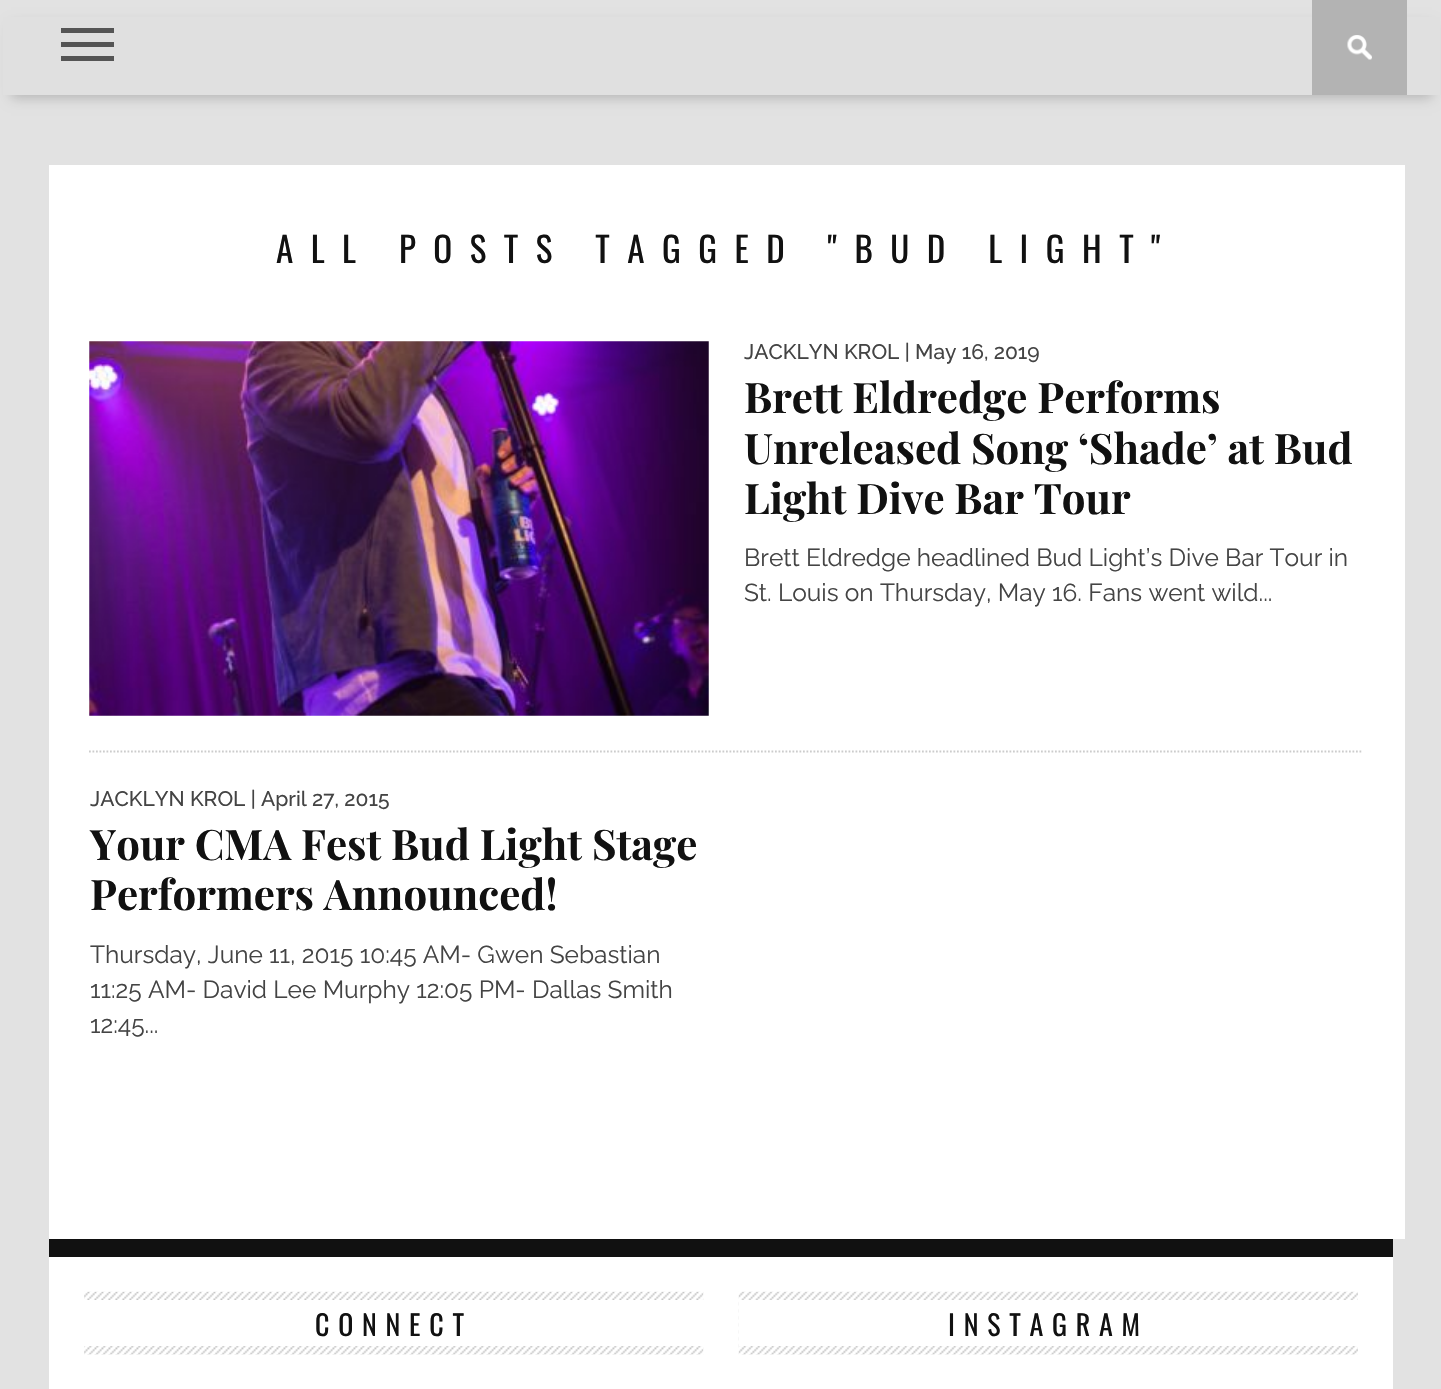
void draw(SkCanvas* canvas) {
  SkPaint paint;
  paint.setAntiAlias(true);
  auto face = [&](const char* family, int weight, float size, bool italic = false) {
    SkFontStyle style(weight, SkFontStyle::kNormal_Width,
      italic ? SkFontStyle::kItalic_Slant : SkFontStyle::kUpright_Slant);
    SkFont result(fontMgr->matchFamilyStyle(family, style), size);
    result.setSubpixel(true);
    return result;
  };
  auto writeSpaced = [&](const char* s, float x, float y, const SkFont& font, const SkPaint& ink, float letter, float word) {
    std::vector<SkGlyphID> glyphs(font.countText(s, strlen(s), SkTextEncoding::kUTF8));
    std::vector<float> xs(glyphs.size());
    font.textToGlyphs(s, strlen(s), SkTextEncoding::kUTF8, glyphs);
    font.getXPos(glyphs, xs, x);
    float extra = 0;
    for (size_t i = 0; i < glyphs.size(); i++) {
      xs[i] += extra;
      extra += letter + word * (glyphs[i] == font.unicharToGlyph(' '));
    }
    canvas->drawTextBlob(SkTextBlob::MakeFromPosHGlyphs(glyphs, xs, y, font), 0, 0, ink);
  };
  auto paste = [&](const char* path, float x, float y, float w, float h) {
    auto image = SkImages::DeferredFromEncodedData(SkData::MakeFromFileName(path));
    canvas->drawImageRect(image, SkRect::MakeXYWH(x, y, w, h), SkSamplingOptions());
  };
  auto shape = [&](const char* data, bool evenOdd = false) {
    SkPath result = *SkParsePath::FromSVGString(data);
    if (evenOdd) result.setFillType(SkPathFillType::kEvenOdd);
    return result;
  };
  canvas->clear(0xffe2e2e2);
  paint.setColor(0x33000000);
  paint.setMaskFilter(SkMaskFilter::MakeBlur(kNormal_SkBlurStyle, 6));
  canvas->drawRect(SkRect::MakeXYWH(11, 25, 1421, 73), paint);
  paint.setMaskFilter(nullptr);
  {
    const struct { float x, y, w, h; SkColor color; } items[] = {
      {3, 17, 1437, 78, 0xffe0e0e0},
      {61, 28, 53, 5, 0xff555555},
      {61, 42, 53, 5, 0xff555555},
      {61, 56, 53, 5, 0xff555555},
      {1312, 0, 95, 95, 0xffb3b3b3},
    };
    for (auto [x, y, w, h, color] : items) {
      paint.setColor(color);
      canvas->drawRect(SkRect::MakeXYWH(x, y, w, h), paint);
    }
  }
  paste("img/1.png", 1347, 35, 25, 25);
  paint.setColor(0xffffffff);
  canvas->drawRect(SkRect::MakeXYWH(49, 1257, 1344, 132), paint);
  canvas->drawRect(SkRect::MakeXYWH(49, 165, 1356, 1074), paint);
  paste("img/2.png", 89, 341, 620, 375);
  paint.setStroke(true);
  paint.setStrokeWidth(1.8f);
  paint.setColor(0xffcccccc);
  paint.setPathEffect(SkDashPathEffect::Make({{1.75f, 1.75f}}, 0));
  canvas->drawPath(shape("M89 751.5H1363"), paint);
  paint.setPathEffect(nullptr);
  paint.setStroke(false);
  paint.setColor(0xff111111);
  canvas->drawRect(SkRect::MakeXYWH(49, 1239, 1344, 18), paint);
  paste("img/3.png", 84, 1291, 620, 64);
  paint.setColor(0xffffffff);
  canvas->drawRect(SkRect::MakeXYWH(84, 1300, 620, 46), paint);
  paste("img/4.png", 738, 1291, 620, 64);
  canvas->drawRect(SkRect::MakeXYWH(739, 1300, 619, 46), paint);
  auto f0 = face("Oswald", 400, 35);
  paint.setColor(0xff111111);
  writeSpaced("ALL POSTS TAGGED \"BUD LIGHT\"", 276, 263, f0, paint, 17.5f, 0);
  auto f1 = face("Raleway", 500, 21);
  paint.setColor(0xff444444);
  canvas->drawString("JACKLYN KROL | May 16, 2019", 744, 359, f1, paint);
  auto f2 = face("Playfair Display", 700, 42);
  paint.setColor(0xff111111);
  {
    const struct { const char* s; float x, y; } items[] = {
      {"Brett Eldredge Performs", 744, 413},
      {"Unreleased Song ‘Shade’ at Bud", 744, 464},
      {"Light Dive Bar Tour", 744, 514},
    };
    for (auto [s, x, y] : items) {
      canvas->drawString(s, x, y, f2, paint);
    }
  }
  auto f3 = face("Raleway", 400, 24.5f);
  paint.setColor(0xff444444);
  canvas->drawString("Brett Eldredge headlined Bud Light’s Dive Bar Tour in", 744, 566, f3, paint);
  canvas->drawString("St. Louis on Thursday, May 16. Fans went wild...", 744, 601, f3, paint);
  canvas->drawString("JACKLYN KROL | April 27, 2015", 90, 806, f1, paint);
  paint.setColor(0xff111111);
  canvas->drawString("Your CMA Fest Bud Light Stage", 90, 860, f2, paint);
  canvas->drawString("Performers Announced!", 90, 910, f2, paint);
  paint.setColor(0xff444444);
  {
    const struct { const char* s; float x, y; } items[] = {
      {"Thursday, June 11, 2015 10:45 AM- Gwen Sebastian", 90, 963},
      {"11:25 AM- David Lee Murphy 12:05 PM- Dallas Smith", 90, 998},
      {"12:45...", 90, 1033},
    };
    for (auto [s, x, y] : items) {
      canvas->drawString(s, x, y, f3, paint);
    }
  }
  auto f4 = face("Oswald", 400, 28);
  paint.setColor(0xff111111);
  writeSpaced("CONNECT", 315, 1336, f4, paint, 8.75f, 0);
  writeSpaced("INSTAGRAM", 948, 1336, f4, paint, 8.75f, 0);
}
